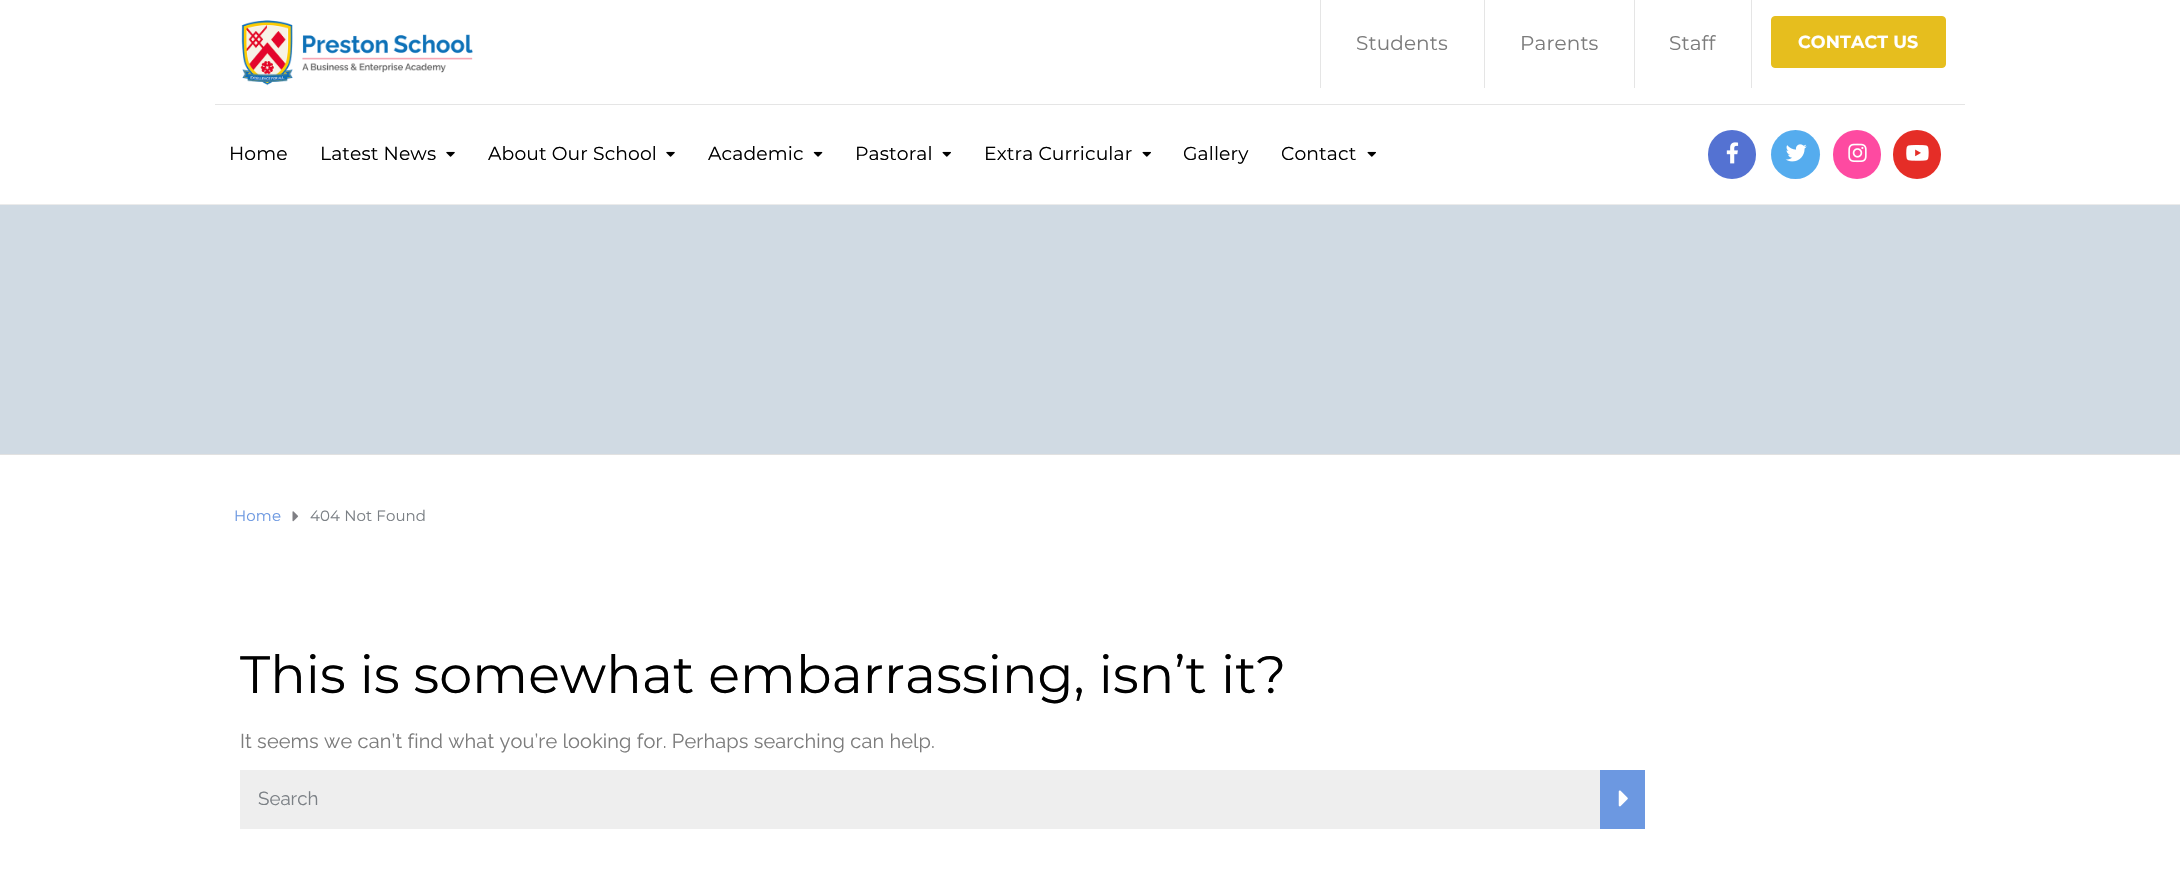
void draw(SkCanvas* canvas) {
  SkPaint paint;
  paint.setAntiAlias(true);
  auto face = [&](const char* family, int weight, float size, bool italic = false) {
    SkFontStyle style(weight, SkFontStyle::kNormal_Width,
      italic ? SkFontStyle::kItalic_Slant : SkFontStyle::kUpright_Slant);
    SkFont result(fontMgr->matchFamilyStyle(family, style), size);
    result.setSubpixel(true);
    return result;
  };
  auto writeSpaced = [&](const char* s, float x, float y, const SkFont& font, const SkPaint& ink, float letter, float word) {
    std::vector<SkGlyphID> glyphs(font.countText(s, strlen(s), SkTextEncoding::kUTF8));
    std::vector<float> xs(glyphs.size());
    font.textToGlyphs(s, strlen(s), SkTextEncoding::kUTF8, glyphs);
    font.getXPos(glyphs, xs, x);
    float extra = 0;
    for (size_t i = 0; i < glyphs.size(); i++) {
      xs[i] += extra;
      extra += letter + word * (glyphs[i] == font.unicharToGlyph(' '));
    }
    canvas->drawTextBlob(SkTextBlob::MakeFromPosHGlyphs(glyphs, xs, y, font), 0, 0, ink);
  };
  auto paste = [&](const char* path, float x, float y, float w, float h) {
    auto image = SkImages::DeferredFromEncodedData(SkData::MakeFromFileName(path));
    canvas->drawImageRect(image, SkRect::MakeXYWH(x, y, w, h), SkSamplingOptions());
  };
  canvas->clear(0xffffffff);
  paint.setColor(0xffebebeb);
  canvas->drawRect(SkRect::MakeXYWH(0, 204, 2180, 1), paint);
  paint.setColor(0xffe5e5e5);
  canvas->drawRect(SkRect::MakeXYWH(215, 104, 1750, 1), paint);
  paste("img/1.png", 241, 20, 232, 66);
  {
    const struct { float x, y, w, h; SkColor color; } items[] = {
      {1484, 0, 1, 88, 0xffe5e5e5},
      {1320, 0, 1, 88, 0xffe5e5e5},
      {1634, 0, 1, 88, 0xffe5e5e5},
      {1751, 0, 1, 88, 0xffe5e5e5},
    };
    for (auto [x, y, w, h, color] : items) {
      paint.setColor(color);
      canvas->drawRect(SkRect::MakeXYWH(x, y, w, h), paint);
    }
  }
  paint.setColor(0xffe6be1e);
  canvas->drawRoundRect(SkRect::MakeXYWH(1771.5f, 16.5f, 174, 51), 3.5f, 3.5f, paint);
  paint.setStroke(true);
  paint.setStrokeWidth(1);
  canvas->drawRoundRect(SkRect::MakeXYWH(1771.5f, 16.5f, 174, 51), 3.5f, 3.5f, paint);
  paste("img/2.png", 446, 151, 9, 6);
  paste("img/2.png", 666, 151, 9, 6);
  paste("img/3.png", 813, 151, 10, 6);
  paste("img/4.png", 942, 151, 9, 6);
  paste("img/4.png", 1142, 151, 9, 6);
  paste("img/4.png", 1367, 151, 9, 6);
  paint.setStroke(false);
  paint.setColor(0xff5472d2);
  canvas->drawRoundRect(SkRect::MakeXYWH(1708, 130, 48, 49), 24, 24, paint);
  paste("img/5.png", 1726, 142, 13, 22);
  paint.setColor(0xff55acee);
  canvas->drawCircle(1795.5f, 154.5f, 24.5f, paint);
  paste("img/6.png", 1785, 144, 22, 18);
  paint.setColor(0xfffe4aa1);
  canvas->drawRoundRect(SkRect::MakeXYWH(1833, 130, 48, 49), 24, 24, paint);
  paste("img/7.png", 1848, 143, 19, 20);
  paint.setColor(0xffe52d27);
  canvas->drawRoundRect(SkRect::MakeXYWH(1893, 130, 48, 49), 24, 24, paint);
  paste("img/8.png", 1906, 145, 23, 16);
  paint.setColor(0xffd0dae3);
  canvas->drawRect(SkRect::MakeXYWH(0, 205, 2180, 249), paint);
  paint.setColor(0xffe1e1e1);
  canvas->drawRect(SkRect::MakeXYWH(0, 454, 2180, 1), paint);
  paste("img/9.png", 292, 511, 7, 11);
  paint.setColor(0xffeeeeee);
  canvas->drawRect(SkRect::MakeXYWH(240, 770, 1360, 59), paint);
  paint.setColor(0xff6c98e1);
  canvas->drawRect(SkRect::MakeXYWH(1600, 770, 45, 59), paint);
  paste("img/10.png", 1618, 790, 10, 17);
  auto f0 = face("Montserrat", 400, 20);
  paint.setColor(0xff7c7c7c);
  {
    const struct { const char* s; float x, y; } items[] = {
      {"Students", 1356, 50},
      {"Parents", 1520, 50},
      {"Staff", 1669, 50},
    };
    for (auto [s, x, y] : items) {
      writeSpaced(s, x, y, f0, paint, 0.12f, 0);
    }
  }
  auto f1 = face("Montserrat", 700, 17.5f);
  paint.setColor(0xffffffff);
  writeSpaced("CONTACT US", 1798, 48, f1, paint, 0.12f, 0);
  auto f2 = face("Montserrat", 400, 18.75f);
  paint.setColor(0xff000000);
  {
    const struct { const char* s; float x, y; } items[] = {
      {"Home", 229, 160},
      {"Latest News", 320, 160},
      {"About Our School", 488, 160},
      {"Academic", 708, 160},
      {"Pastoral", 855, 160},
      {"Extra Curricular", 984, 160},
      {"Gallery", 1183, 160},
      {"Contact", 1281, 160},
    };
    for (auto [s, x, y] : items) {
      writeSpaced(s, x, y, f2, paint, 0.12f, 0);
    }
  }
  auto f3 = face("Montserrat", 400, 15);
  paint.setColor(0xff6c98e1);
  writeSpaced("Home", 234, 521, f3, paint, 0.12f, 0);
  paint.setColor(0xff7b8085);
  writeSpaced("404 Not Found", 310, 521, f3, paint, 0.12f, 0);
  auto f4 = face("Montserrat", 400, 52.5f);
  paint.setColor(0xff000000);
  writeSpaced("This is somewhat embarrassing, isn’t it?", 240, 693, f4, paint, 0.12f, 0);
  auto f5 = face("Raleway", 100, 20);
  paint.setColor(0xff7c7c7c);
  writeSpaced("It seems we can’t find what you’re looking for. Perhaps searching can help.", 240, 748, f5, paint, 0.12f, 0);
  auto f6 = face("Raleway", 100, 18.75f);
  paint.setColor(0xff7b8085);
  canvas->drawString("Search", 258, 805, f6, paint);
}
